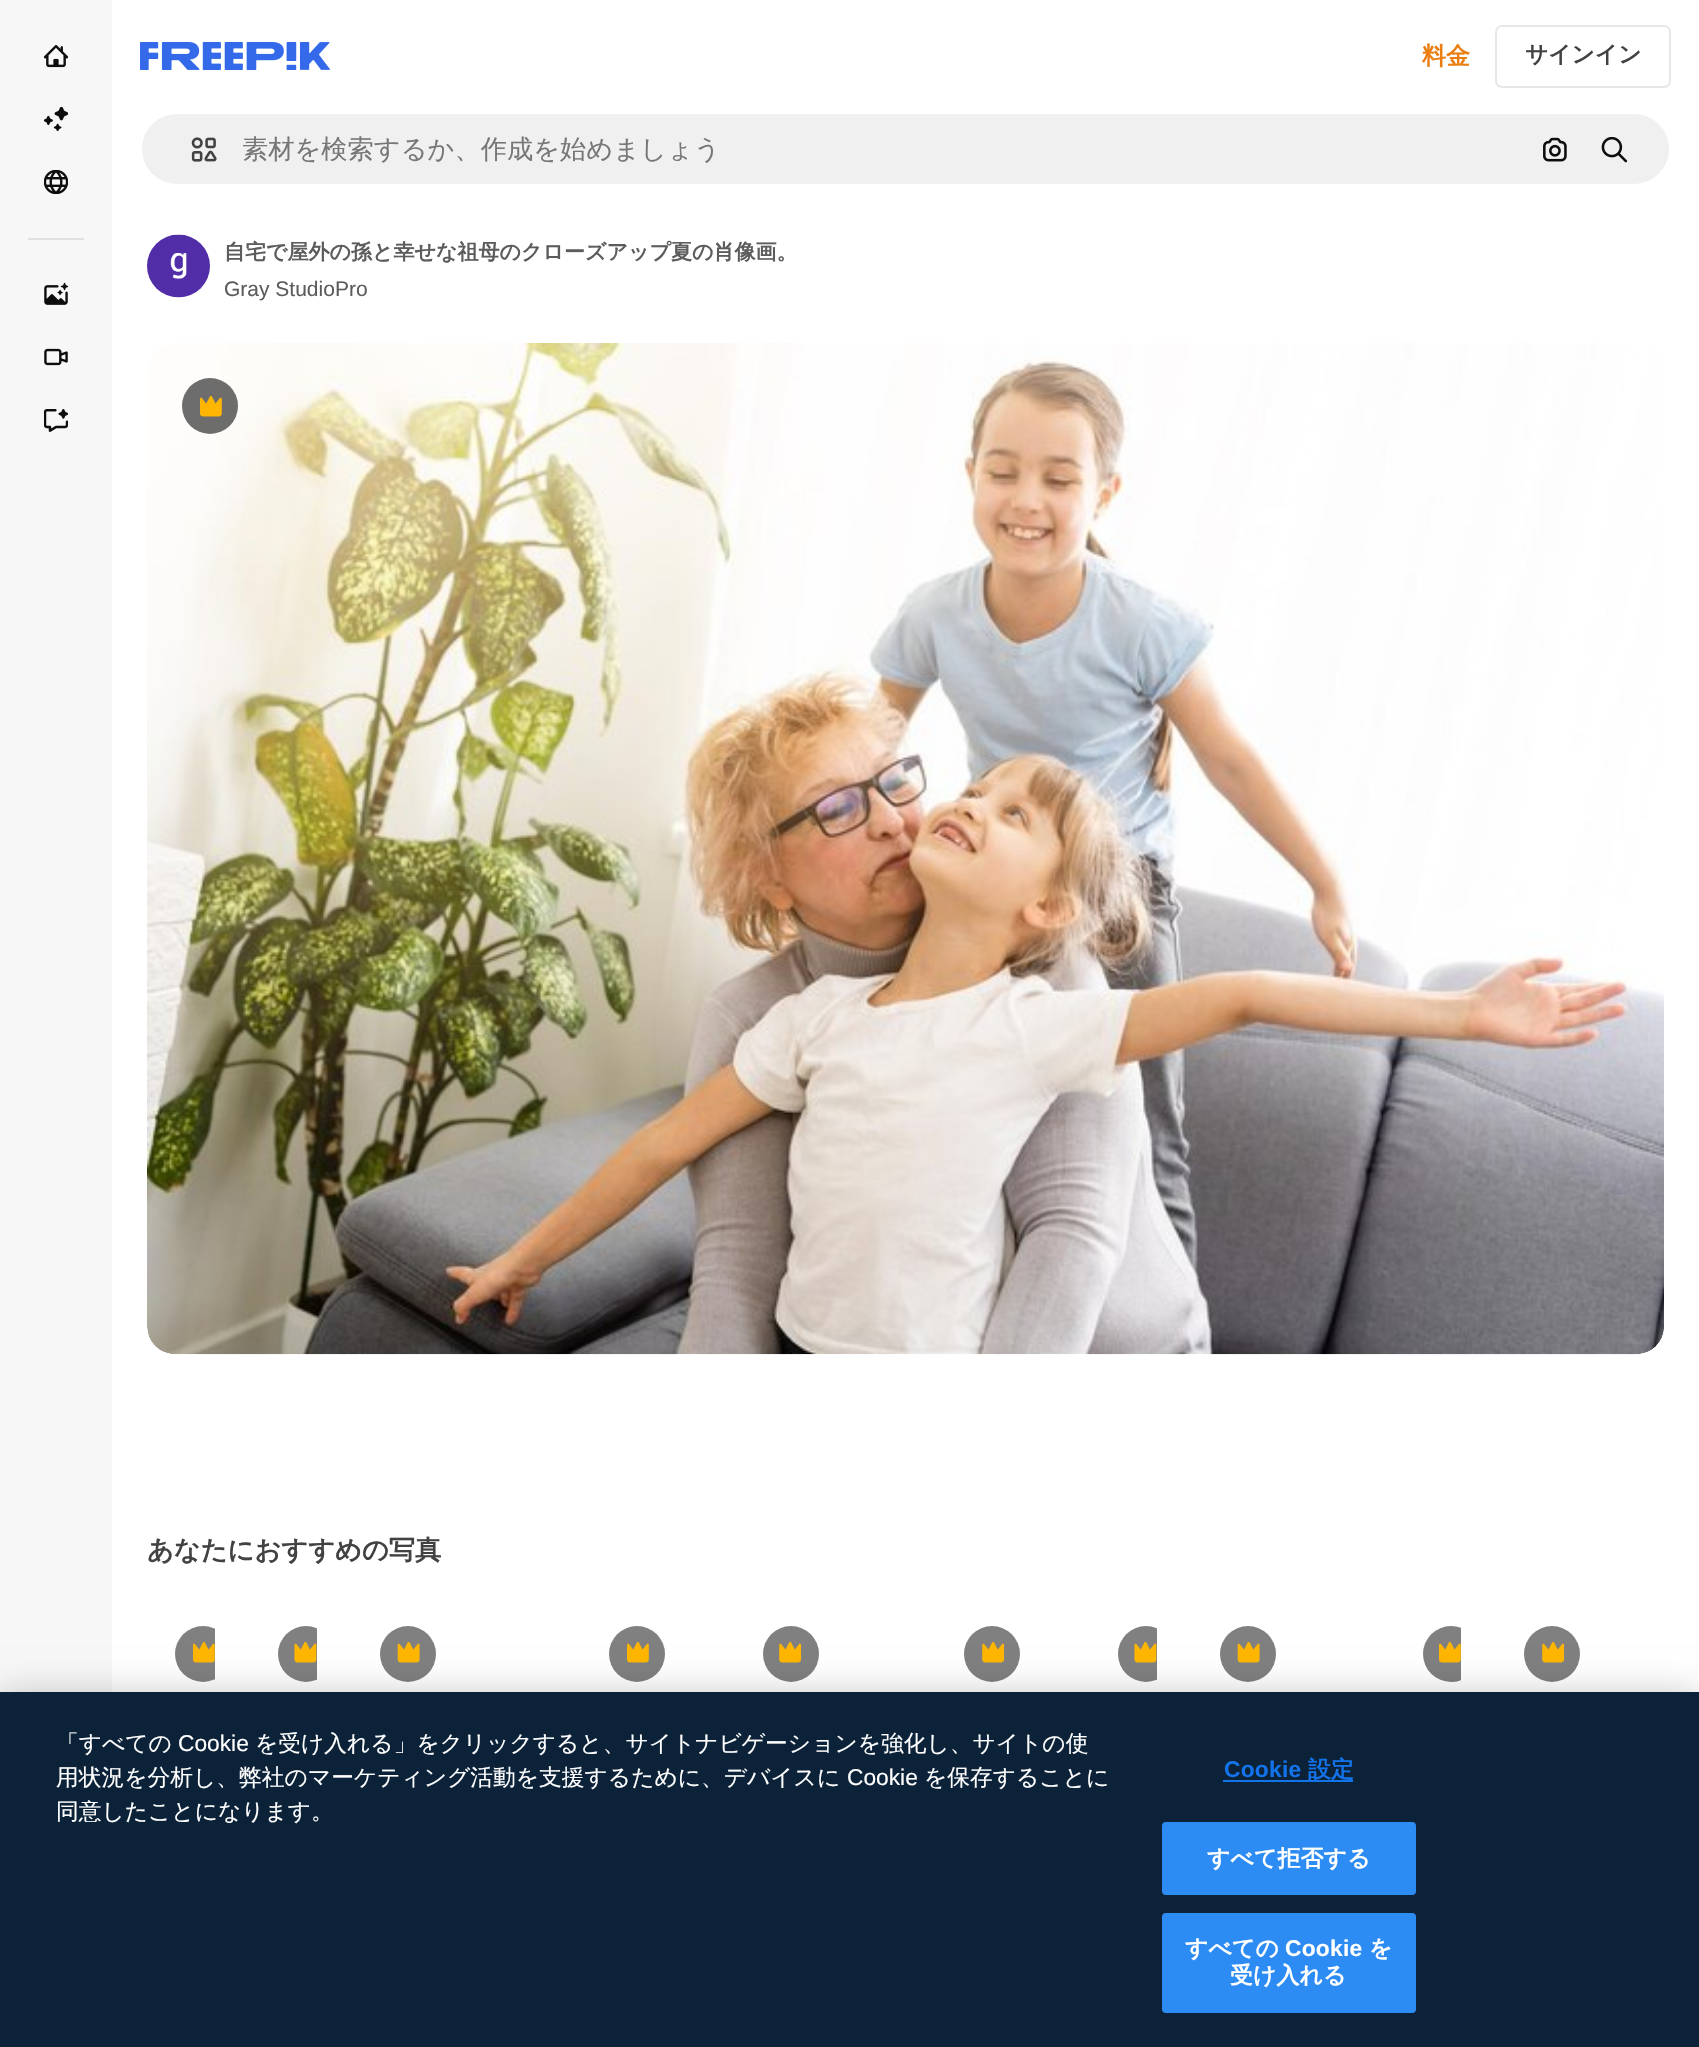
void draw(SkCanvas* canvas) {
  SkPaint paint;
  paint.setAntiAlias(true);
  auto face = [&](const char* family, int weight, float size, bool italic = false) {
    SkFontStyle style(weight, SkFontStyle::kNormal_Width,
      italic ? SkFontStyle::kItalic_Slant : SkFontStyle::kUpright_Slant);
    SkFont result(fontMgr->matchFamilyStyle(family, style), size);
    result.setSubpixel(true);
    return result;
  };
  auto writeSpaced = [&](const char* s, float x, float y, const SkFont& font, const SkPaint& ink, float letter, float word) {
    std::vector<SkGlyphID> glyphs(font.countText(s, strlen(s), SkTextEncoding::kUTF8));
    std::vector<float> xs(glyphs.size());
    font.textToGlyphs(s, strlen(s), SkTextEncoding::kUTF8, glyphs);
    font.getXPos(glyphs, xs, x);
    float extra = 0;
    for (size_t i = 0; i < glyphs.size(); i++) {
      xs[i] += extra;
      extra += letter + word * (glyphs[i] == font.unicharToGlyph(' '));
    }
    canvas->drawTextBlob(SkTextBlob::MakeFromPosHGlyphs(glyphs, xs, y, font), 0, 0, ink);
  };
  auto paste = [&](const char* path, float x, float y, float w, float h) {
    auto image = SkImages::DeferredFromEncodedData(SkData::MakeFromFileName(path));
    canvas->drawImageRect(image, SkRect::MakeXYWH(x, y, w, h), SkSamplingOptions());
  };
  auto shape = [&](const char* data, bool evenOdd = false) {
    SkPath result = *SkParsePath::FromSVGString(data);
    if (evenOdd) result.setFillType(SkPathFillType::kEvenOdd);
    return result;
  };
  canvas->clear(0xffffffff);
  paint.setColor(0xfff7f7f7);
  canvas->drawRect(SkRect::MakeXYWH(0, 0, 112, 1692), paint);
  paste("img/1.png", 44, 45, 24, 23);
  paste("img/2.png", 44, 107, 24, 24);
  paste("img/3.png", 44, 170, 24, 24);
  paint.setColor(0xffe0e0e0);
  canvas->drawRect(SkRect::MakeXYWH(28, 238, 56, 2), paint);
  paste("img/4.png", 44, 282, 24, 23);
  paste("img/5.png", 44, 348, 24, 18);
  paste("img/6.png", 44, 409, 24, 23);
  paste("img/7.png", 140, 42, 190, 28);
  paint.setStroke(true);
  paint.setStrokeWidth(2);
  paint.setColor(0xffe7e7e7);
  canvas->drawRoundRect(SkRect::MakeXYWH(1496, 26, 174, 61), 6, 6, paint);
  paint.setStroke(false);
  paint.setColor(0xfff0f0f0);
  canvas->drawRoundRect(SkRect::MakeXYWH(141, 113, 1529, 72), 36, 36, paint);
  paint.setStroke(true);
  paint.setColor(0xffffffff);
  canvas->drawRoundRect(SkRect::MakeXYWH(141, 113, 1529, 72), 36, 36, paint);
  paste("img/8.png", 191, 137, 26, 25);
  paste("img/9.png", 1543, 137, 24, 25);
  paste("img/10.png", 1601, 137, 27, 26);
  paste("img/11.png", 147, 234, 63, 64);
  paste("img/12.png", 147, 343, 1517, 1012);
  paint.setStroke(false);
  paint.setColor(0x990d0d0d);
  canvas->drawCircle(210, 406, 28, paint);
  paste("img/13.png", 200, 396, 22, 21);
  canvas->save();
  canvas->clipPath(shape("M175 1598H187C202.5 1598 215 1610.5 215 1626V1920C215 1935.5 202.5 1948 187 1948H175C159.5 1948 147 1935.5 147 1920V1626C147 1610.5 159.5 1598 175 1598Z"), true);
  paint.setColor(0xff808080);
  canvas->drawCircle(203, 1654, 28, paint);
  canvas->restore();
  paste("img/14.png", 193, 1642, 22, 21);
  canvas->save();
  canvas->clipPath(shape("M278 1598H289C304.5 1598 317 1610.5 317 1626V1920C317 1935.5 304.5 1948 289 1948H278C262.5 1948 250 1935.5 250 1920V1626C250 1610.5 262.5 1598 278 1598Z"), true);
  canvas->drawCircle(306, 1654, 28, paint);
  canvas->restore();
  paste("img/15.png", 294, 1642, 23, 21);
  canvas->drawCircle(408, 1654, 28, paint);
  paste("img/16.png", 397, 1642, 23, 21);
  canvas->drawCircle(637, 1654, 28, paint);
  paste("img/14.png", 627, 1642, 22, 21);
  canvas->drawCircle(791, 1654, 28, paint);
  paste("img/17.png", 779, 1642, 23, 21);
  canvas->drawCircle(992, 1654, 28, paint);
  paste("img/17.png", 982, 1642, 23, 21);
  canvas->save();
  canvas->clipPath(shape("M1118 1598H1129C1144.5 1598 1157 1610.5 1157 1626V1920C1157 1935.5 1144.5 1948 1129 1948H1118C1102.5 1948 1090 1935.5 1090 1920V1626C1090 1610.5 1102.5 1598 1118 1598Z"), true);
  canvas->drawCircle(1146, 1654, 28, paint);
  canvas->restore();
  paste("img/15.png", 1134, 1642, 23, 21);
  canvas->drawCircle(1248, 1654, 28, paint);
  paste("img/16.png", 1237, 1642, 23, 21);
  canvas->save();
  canvas->clipPath(shape("M1423 1598H1433C1448.5 1598 1461 1610.5 1461 1626V1920C1461 1935.5 1448.5 1948 1433 1948H1423C1407.5 1948 1395 1935.5 1395 1920V1626C1395 1610.5 1407.5 1598 1423 1598Z"), true);
  canvas->drawCircle(1451, 1654, 28, paint);
  canvas->restore();
  paste("img/14.png", 1439, 1642, 22, 21);
  canvas->drawCircle(1552, 1654, 28, paint);
  paste("img/17.png", 1542, 1642, 23, 21);
  paint.setColor(0x33000000);
  paint.setMaskFilter(SkMaskFilter::MakeBlur(kNormal_SkBlurStyle, 16));
  canvas->drawRect(SkRect::MakeXYWH(0, 1692, 1699, 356), paint);
  paint.setMaskFilter(nullptr);
  paint.setColor(0xff0b2239);
  canvas->drawRect(SkRect::MakeXYWH(0, 1692, 1699, 355), paint);
  paint.setColor(0xff1273eb);
  canvas->drawRect(SkRect::MakeXYWH(1223, 1780, 130, 2), paint);
  paint.setColor(0xff2c8cf4);
  canvas->drawRoundRect(SkRect::MakeXYWH(1163, 1823, 252, 71), 3, 3, paint);
  paint.setStroke(true);
  canvas->drawRoundRect(SkRect::MakeXYWH(1163, 1823, 252, 71), 3, 3, paint);
  paint.setStroke(false);
  canvas->drawRoundRect(SkRect::MakeXYWH(1163, 1914, 252, 98), 3, 3, paint);
  paint.setStroke(true);
  canvas->drawRoundRect(SkRect::MakeXYWH(1163, 1914, 252, 98), 3, 3, paint);
  auto f0 = face("WenQuanYi Zen Hei", 700, 24);
  paint.setStroke(false);
  paint.setColor(0xffea7e11);
  canvas->drawString("料金", 1422, 64, f0, paint);
  auto f1 = face("WenQuanYi Zen Hei", 700, 22.75f);
  paint.setColor(0xff424242);
  canvas->drawString("サインイン", 1525, 62, f1, paint);
  auto f2 = face("WenQuanYi Zen Hei", 500, 26.25f);
  paint.setColor(0xff777777);
  canvas->drawString("素材を検索するか、作成を始めましょう", 242, 158, f2, paint);
  auto f3 = face("WenQuanYi Zen Hei", 700, 21);
  paint.setColor(0xff5c5c5c);
  canvas->drawString("自宅で屋外の孫と幸せな祖母のクローズアップ夏の肖像画。", 224, 259, f3, paint);
  auto f4 = face("Liberation Sans", 400, 21);
  canvas->drawString("Gray StudioPro", 224, 296, f4, paint);
  auto f5 = face("WenQuanYi Zen Hei", 700, 26.25f);
  paint.setColor(0xff424242);
  canvas->drawString("あなたにおすすめの写真", 147, 1559, f5, paint);
  auto f6 = face("WenQuanYi Zen Hei", 500, 22.75f);
  paint.setColor(0xffffffff);
  canvas->drawString("「すべての", 56, 1751, f6, paint);
  auto f7 = face("Liberation Sans", 400, 22.75f);
  canvas->drawString("Cookie", 178, 1751, f7, paint);
  canvas->drawString("を受け入れる」をクリックすると、サイトナビゲーションを強化し、サイトの使", 255, 1751, f6, paint);
  canvas->drawString("用状況を分析し、弊社のマーケティング活動を支援するために、デバイスに", 56, 1785, f6, paint);
  canvas->drawString("Cookie", 847, 1785, f7, paint);
  canvas->drawString("を保存することに", 924, 1785, f6, paint);
  canvas->drawString("同意したことになります。", 56, 1819, f6, paint);
  auto f8 = face("Liberation Sans", 700, 22.75f);
  paint.setColor(0xff1273eb);
  writeSpaced("Cookie", 1224, 1777, f8, paint, 0.25f, 0);
  writeSpaced("設定", 1308, 1777, f1, paint, 0.25f, 0);
  paint.setColor(0xffffffff);
  writeSpaced("すべて拒否する", 1207, 1866, f1, paint, 0.25f, 0);
  writeSpaced("すべての", 1185, 1956, f1, paint, 0.25f, 0);
  writeSpaced("Cookie", 1285, 1956, f8, paint, 0.25f, 0);
  writeSpaced("を", 1369, 1956, f1, paint, 0.25f, 0);
  writeSpaced("受け入れる", 1230, 1983, f1, paint, 0.25f, 0);
}
